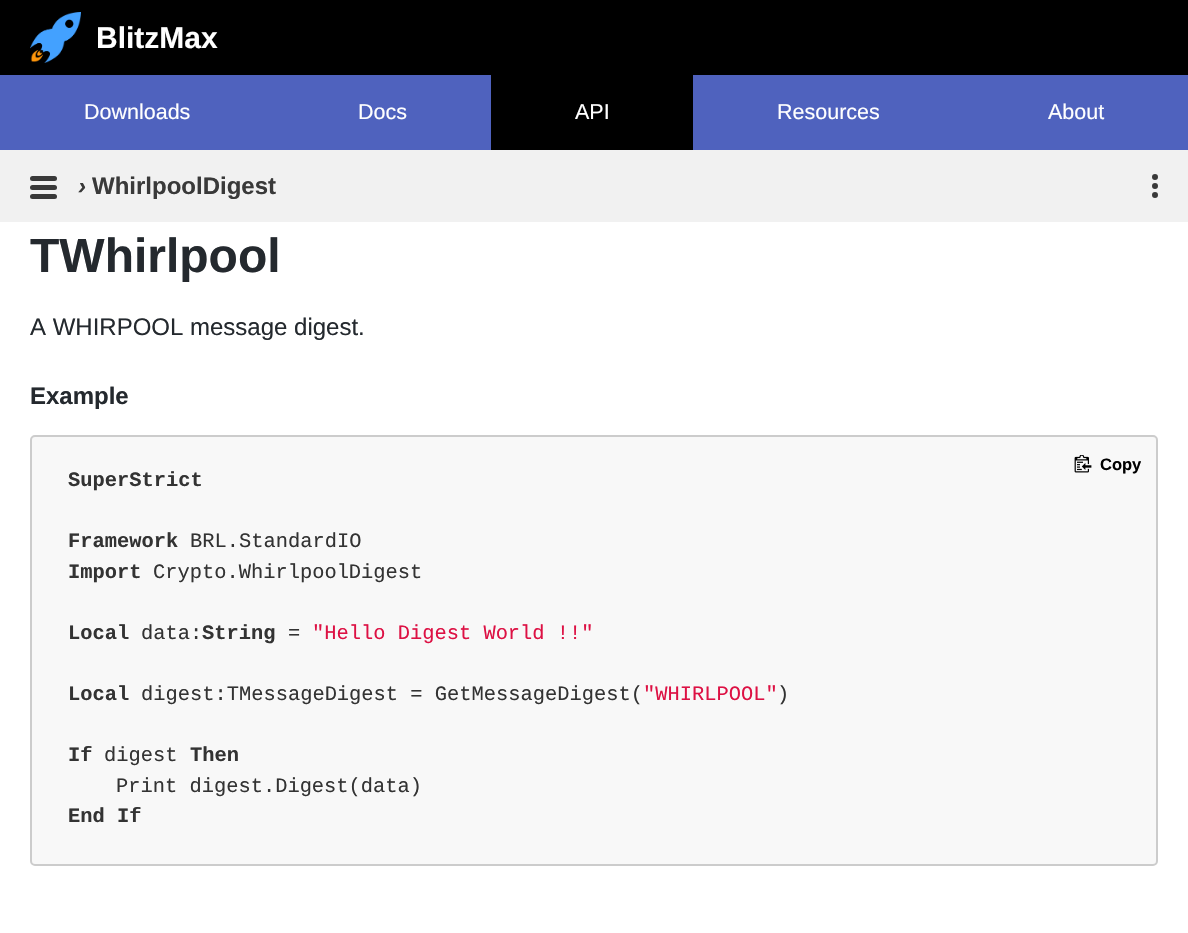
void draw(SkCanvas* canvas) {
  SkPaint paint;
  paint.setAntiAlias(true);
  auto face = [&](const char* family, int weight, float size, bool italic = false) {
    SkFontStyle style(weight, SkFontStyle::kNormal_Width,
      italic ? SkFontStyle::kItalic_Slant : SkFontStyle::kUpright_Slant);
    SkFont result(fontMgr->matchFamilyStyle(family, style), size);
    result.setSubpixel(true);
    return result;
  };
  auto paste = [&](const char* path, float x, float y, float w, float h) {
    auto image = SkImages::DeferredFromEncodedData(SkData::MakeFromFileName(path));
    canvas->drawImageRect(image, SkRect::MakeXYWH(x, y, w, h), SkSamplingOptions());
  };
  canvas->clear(0xffffffff);
  paint.setColor(0xff000000);
  canvas->drawRect(SkRect::MakeXYWH(0, 0, 1188, 75), paint);
  paste("img/1.png", 30, 12, 51, 51);
  {
    const struct { float x, y, w, h; SkColor color; } items[] = {
      {0, 75, 1188, 75, 0xff4f62be},
      {491, 75, 202, 75, 0xff000000},
      {0, 150, 1188, 72, 0xfff1f1f1},
    };
    for (auto [x, y, w, h, color] : items) {
      paint.setColor(color);
      canvas->drawRect(SkRect::MakeXYWH(x, y, w, h), paint);
    }
  }
  paint.setColor(0xff393939);
  canvas->drawRoundRect(SkRect::MakeXYWH(30, 176, 27, 5), 2.5f, 2.5f, paint);
  canvas->drawRoundRect(SkRect::MakeXYWH(30, 185, 27, 5), 2.5f, 2.5f, paint);
  canvas->drawRoundRect(SkRect::MakeXYWH(30, 194, 27, 5), 2.5f, 2.5f, paint);
  canvas->drawCircle(1155, 186, 2, paint);
  paint.setStroke(true);
  paint.setStrokeWidth(2);
  canvas->drawCircle(1155, 186, 2, paint);
  paint.setStroke(false);
  canvas->drawCircle(1155, 177, 2, paint);
  paint.setStroke(true);
  canvas->drawCircle(1155, 177, 2, paint);
  paint.setStroke(false);
  canvas->drawCircle(1155, 195, 2, paint);
  paint.setStroke(true);
  canvas->drawCircle(1155, 195, 2, paint);
  paint.setStroke(false);
  paint.setColor(0xfff8f8f8);
  canvas->drawRoundRect(SkRect::MakeXYWH(31, 436, 1126, 429), 4, 4, paint);
  paint.setStroke(true);
  paint.setColor(0xffcccccc);
  canvas->drawRoundRect(SkRect::MakeXYWH(31, 436, 1126, 429), 4, 4, paint);
  paste("img/2.png", 1074, 455, 18, 18);
  auto f0 = face("Liberation Sans", 700, 30);
  paint.setStroke(false);
  paint.setColor(0xffffffff);
  canvas->drawString("BlitzMax", 96, 48, f0, paint);
  auto f1 = face("Liberation Sans", 400, 21.5f);
  {
    const struct { const char* s; float x, y; } items[] = {
      {"Downloads", 84, 119},
      {"Docs", 358, 119},
      {"API", 575, 119},
      {"Resources", 777, 119},
      {"About", 1048, 119},
    };
    for (auto [s, x, y] : items) {
      canvas->drawString(s, x, y, f1, paint);
    }
  }
  auto f2 = face("Liberation Sans", 700, 24, true);
  paint.setColor(0xff393939);
  canvas->drawString("›", 78, 194, f2, paint);
  auto f3 = face("Liberation Sans", 700, 24);
  canvas->drawString("WhirlpoolDigest", 92, 194, f3, paint);
  auto f4 = face("Liberation Sans", 700, 48);
  paint.setColor(0xff24292e);
  canvas->drawString("TWhirlpool", 30, 272, f4, paint);
  auto f5 = face("Liberation Sans", 400, 24);
  canvas->drawString("A WHIRPOOL message digest.", 30, 335, f5, paint);
  canvas->drawString("Example", 30, 404, f3, paint);
  auto f6 = face("Liberation Sans", 700, 16.5f);
  paint.setColor(0xff000000);
  canvas->drawString("Copy", 1100, 470, f6, paint);
  auto f7 = face("Liberation Mono", 700, 20.4f);
  paint.setColor(0xff333333);
  canvas->drawString("SuperStrict", 68, 486, f7, paint);
  canvas->drawString("Framework", 68, 547, f7, paint);
  auto f8 = face("Liberation Mono", 400, 20.4f);
  canvas->drawString("BRL.StandardIO", 190, 547, f8, paint);
  canvas->drawString("Import", 68, 578, f7, paint);
  canvas->drawString("Crypto.WhirlpoolDigest", 153, 578, f8, paint);
  canvas->drawString("Local", 68, 639, f7, paint);
  canvas->drawString("data:", 141, 639, f8, paint);
  canvas->drawString("String", 202, 639, f7, paint);
  canvas->drawString("=", 288, 639, f8, paint);
  paint.setColor(0xffdd1144);
  canvas->drawString("\"Hello Digest World !!\"", 312, 639, f8, paint);
  paint.setColor(0xff333333);
  canvas->drawString("Local", 68, 700, f7, paint);
  canvas->drawString("digest:TMessageDigest = GetMessageDigest(", 141, 700, f8, paint);
  paint.setColor(0xffdd1144);
  canvas->drawString("\"WHIRLPOOL\"", 643, 700, f8, paint);
  paint.setColor(0xff333333);
  canvas->drawString(")", 777, 700, f8, paint);
  canvas->drawString("If", 68, 761, f7, paint);
  canvas->drawString("digest", 104, 761, f8, paint);
  canvas->drawString("Then", 190, 761, f7, paint);
  canvas->drawString("Print digest.Digest(data)", 116, 792, f8, paint);
  canvas->drawString("End If", 68, 822, f7, paint);
}
